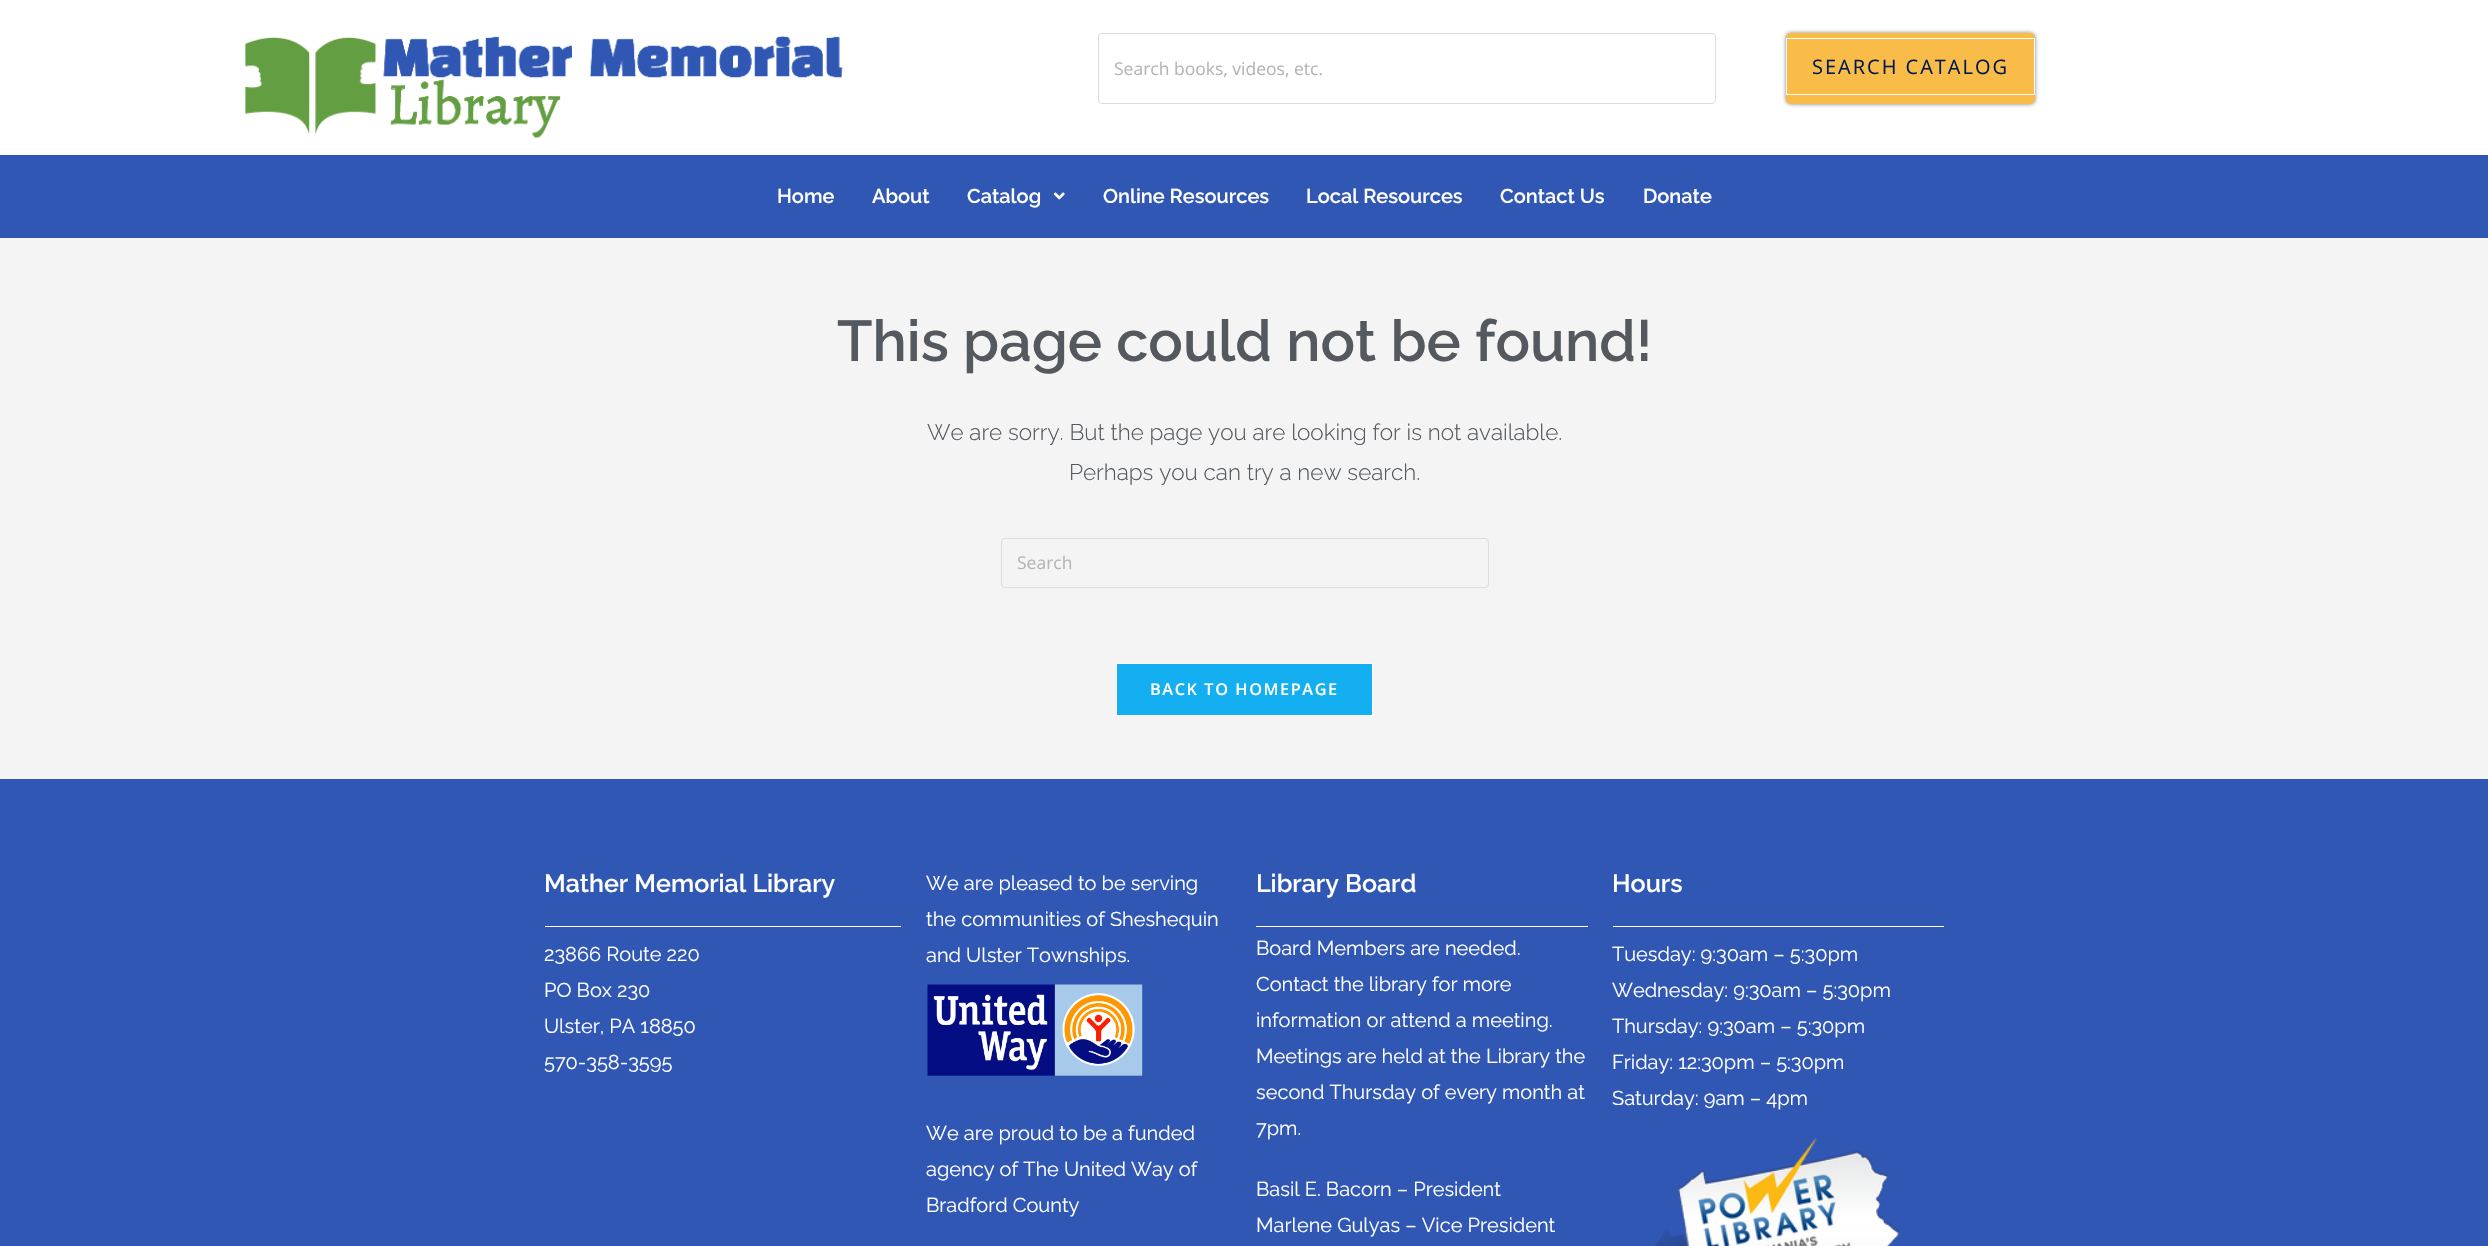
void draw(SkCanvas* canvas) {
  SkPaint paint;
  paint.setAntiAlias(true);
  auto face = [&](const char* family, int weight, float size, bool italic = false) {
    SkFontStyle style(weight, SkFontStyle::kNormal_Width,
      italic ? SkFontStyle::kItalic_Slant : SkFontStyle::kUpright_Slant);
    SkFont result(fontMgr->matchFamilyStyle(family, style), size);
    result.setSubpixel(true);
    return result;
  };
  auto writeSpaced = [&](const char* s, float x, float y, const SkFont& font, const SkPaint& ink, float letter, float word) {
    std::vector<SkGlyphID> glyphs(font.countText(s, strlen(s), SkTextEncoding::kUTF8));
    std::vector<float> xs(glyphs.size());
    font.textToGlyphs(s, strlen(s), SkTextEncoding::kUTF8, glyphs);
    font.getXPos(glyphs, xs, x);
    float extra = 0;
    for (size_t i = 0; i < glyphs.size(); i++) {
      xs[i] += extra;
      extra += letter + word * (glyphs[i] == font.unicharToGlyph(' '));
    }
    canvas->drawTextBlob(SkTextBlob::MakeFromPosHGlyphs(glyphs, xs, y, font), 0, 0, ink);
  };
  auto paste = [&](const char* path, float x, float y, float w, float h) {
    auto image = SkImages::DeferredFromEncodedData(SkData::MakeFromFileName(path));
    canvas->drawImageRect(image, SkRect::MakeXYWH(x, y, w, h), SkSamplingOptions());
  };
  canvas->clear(0xfff4f4f4);
  paint.setColor(0xffffffff);
  canvas->drawRect(SkRect::MakeXYWH(0, 0, 2488, 155), paint);
  paste("img/1.png", 245, 35, 598, 104);
  paint.setStroke(true);
  paint.setStrokeWidth(1);
  paint.setColor(0xffdddddd);
  canvas->drawRoundRect(SkRect::MakeXYWH(1098.5f, 33.5f, 617, 70), 3.5f, 3.5f, paint);
  paint.setStroke(false);
  paint.setColor(0x80000000);
  paint.setMaskFilter(SkMaskFilter::MakeBlur(kNormal_SkBlurStyle, 2));
  canvas->drawRoundRect(SkRect::MakeXYWH(1786, 33, 249, 71), 5, 5, paint);
  paint.setMaskFilter(nullptr);
  paint.setColor(0xfff9bc49);
  canvas->drawRoundRect(SkRect::MakeXYWH(1786, 33, 249, 71), 5, 5, paint);
  paint.setStroke(true);
  paint.setColor(0xffffffff);
  canvas->drawRect(SkRect::MakeXYWH(1786.5f, 38.5f, 248, 56), paint);
  paint.setStroke(false);
  paint.setColor(0xff3057b3);
  canvas->drawRect(SkRect::MakeXYWH(0, 155, 2488, 83), paint);
  paste("img/2.png", 1053, 192, 12, 8);
  paint.setStroke(true);
  paint.setColor(0xffdddddd);
  canvas->drawRoundRect(SkRect::MakeXYWH(1001.5f, 538.5f, 487, 49), 3.5f, 3.5f, paint);
  paint.setStroke(false);
  paint.setColor(0xff13aff0);
  canvas->drawRect(SkRect::MakeXYWH(1116.5f, 663.5f, 256, 52), paint);
  paint.setStroke(true);
  paint.setColor(0xffffffff);
  canvas->drawRect(SkRect::MakeXYWH(1116.5f, 663.5f, 256, 52), paint);
  paint.setStroke(false);
  paint.setColor(0xff3057b3);
  canvas->drawRect(SkRect::MakeXYWH(0, 779, 2488, 467), paint);
  paint.setColor(0xffffffff);
  canvas->drawRect(SkRect::MakeXYWH(545, 926, 356, 1), paint);
  paste("img/3.png", 927, 984, 216, 92);
  canvas->drawRect(SkRect::MakeXYWH(1256, 926, 332, 1), paint);
  canvas->drawRect(SkRect::MakeXYWH(1613, 926, 331, 1), paint);
  paste("img/4.png", 1655, 1138, 245, 108);
  auto f0 = face("Open Sans", 400, 17.5f);
  paint.setColor(0xffb5b5b5);
  canvas->drawString("Search books, videos, etc.", 1114, 75, f0, paint);
  auto f1 = face("Open Sans", 400, 20);
  paint.setColor(0xff001a4e);
  writeSpaced("SEARCH CATALOG", 1812, 74, f1, paint, 2, 0);
  auto f2 = face("Raleway", 600, 20);
  paint.setColor(0xffffffff);
  {
    const struct { const char* s; float x, y; } items[] = {
      {"Home", 777, 203},
      {"About", 872, 203},
      {"Catalog", 967, 203},
      {"Online Resources", 1103, 203},
      {"Local Resources", 1306, 203},
      {"Contact Us", 1500, 203},
      {"Donate", 1643, 203},
    };
    for (auto [s, x, y] : items) {
      canvas->drawString(s, x, y, f2, paint);
    }
  }
  auto f3 = face("Raleway", 600, 57.5f);
  paint.setColor(0xff54595f);
  canvas->drawString("This page could not be found!", 837, 361, f3, paint);
  auto f4 = face("Raleway", 300, 22.5f);
  canvas->drawString("We are sorry. But the page you are looking for is not available.", 927, 440, f4, paint);
  canvas->drawString("Perhaps you can try a new search.", 1069, 480, f4, paint);
  paint.setColor(0xffb5b5b5);
  canvas->drawString("Search", 1017, 569, f0, paint);
  auto f5 = face("Open Sans", 600, 16.25f);
  paint.setColor(0xffffffff);
  writeSpaced("BACK TO HOMEPAGE", 1150, 695, f5, paint, 1.6f, 0);
  auto f6 = face("Raleway", 600, 25);
  canvas->drawString("Mather Memorial Library", 544, 892, f6, paint);
  auto f7 = face("Raleway", 400, 20);
  {
    const struct { const char* s; float x, y; } items[] = {
      {"23866 Route 220", 544, 961},
      {"PO Box 230", 544, 997},
      {"Ulster, PA 18850", 544, 1033},
      {"570-358-3595", 544, 1069},
      {"We are pleased to be serving", 926, 890},
      {"the communities of Sheshequin", 926, 926},
      {"and Ulster Townships.", 926, 962},
      {"We are proud to be a funded", 926, 1140},
      {"agency of The United Way of", 926, 1176},
      {"Bradford County", 926, 1212},
    };
    for (auto [s, x, y] : items) {
      canvas->drawString(s, x, y, f7, paint);
    }
  }
  canvas->drawString("Library Board", 1256, 892, f6, paint);
  {
    const struct { const char* s; float x, y; } items[] = {
      {"Board Members are needed.", 1256, 955},
      {"Contact the library for more", 1256, 991},
      {"information or attend a meeting.", 1256, 1027},
      {"Meetings are held at the Library the", 1256, 1063},
      {"second Thursday of every month at", 1256, 1099},
      {"7pm.", 1256, 1135},
      {"Basil E. Bacorn – President", 1256, 1196},
      {"Marlene Gulyas – Vice President", 1256, 1232},
    };
    for (auto [s, x, y] : items) {
      canvas->drawString(s, x, y, f7, paint);
    }
  }
  canvas->drawString("Hours", 1612, 892, f6, paint);
  {
    const struct { const char* s; float x, y; } items[] = {
      {"Tuesday: 9:30am – 5:30pm", 1612, 961},
      {"Wednesday: 9:30am – 5:30pm", 1612, 997},
      {"Thursday: 9:30am – 5:30pm", 1612, 1033},
      {"Friday: 12:30pm – 5:30pm", 1612, 1069},
      {"Saturday: 9am – 4pm", 1612, 1105},
    };
    for (auto [s, x, y] : items) {
      canvas->drawString(s, x, y, f7, paint);
    }
  }
}
